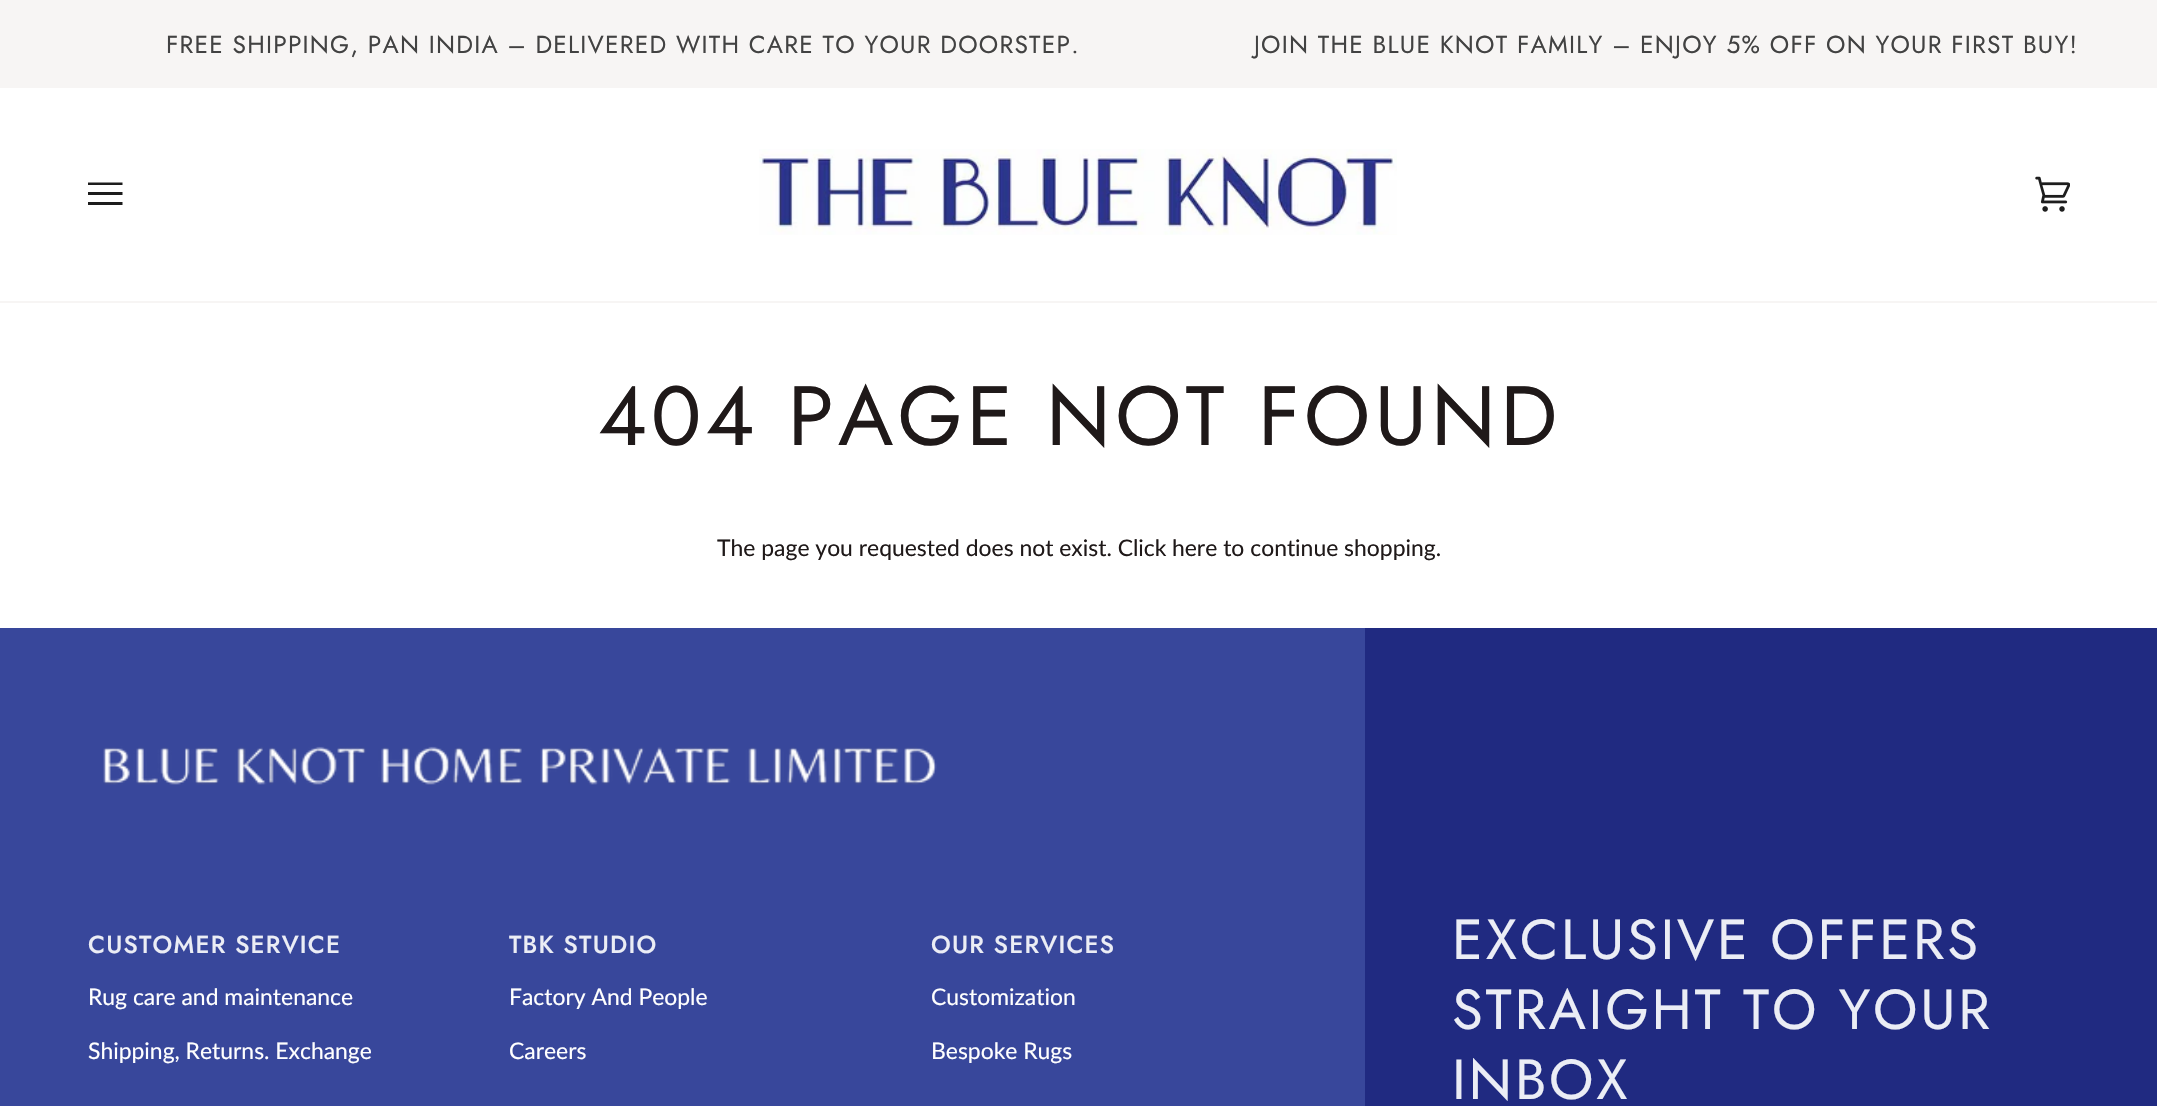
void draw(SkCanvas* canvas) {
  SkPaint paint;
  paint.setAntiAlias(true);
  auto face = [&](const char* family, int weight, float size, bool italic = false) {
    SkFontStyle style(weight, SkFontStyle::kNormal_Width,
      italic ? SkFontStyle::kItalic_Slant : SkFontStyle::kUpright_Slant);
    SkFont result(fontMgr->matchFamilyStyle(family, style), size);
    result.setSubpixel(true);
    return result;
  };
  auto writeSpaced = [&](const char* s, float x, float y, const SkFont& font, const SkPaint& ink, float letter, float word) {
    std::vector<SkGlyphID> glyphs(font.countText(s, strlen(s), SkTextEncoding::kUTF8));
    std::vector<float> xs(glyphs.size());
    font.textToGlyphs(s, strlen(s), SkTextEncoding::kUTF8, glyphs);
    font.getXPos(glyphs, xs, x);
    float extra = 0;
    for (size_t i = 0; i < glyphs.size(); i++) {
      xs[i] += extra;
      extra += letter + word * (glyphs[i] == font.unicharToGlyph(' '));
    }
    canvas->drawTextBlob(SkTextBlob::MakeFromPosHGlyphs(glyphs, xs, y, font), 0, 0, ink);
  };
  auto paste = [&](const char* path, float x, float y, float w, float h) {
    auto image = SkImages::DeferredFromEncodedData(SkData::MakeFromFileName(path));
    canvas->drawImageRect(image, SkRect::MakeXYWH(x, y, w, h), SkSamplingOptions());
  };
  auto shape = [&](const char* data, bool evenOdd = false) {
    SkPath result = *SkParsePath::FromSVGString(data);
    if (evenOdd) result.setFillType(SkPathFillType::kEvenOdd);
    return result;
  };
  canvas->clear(0xffffffff);
  paint.setColor(0xfff7f5f4);
  canvas->drawRect(SkRect::MakeXYWH(0, 0, 2157, 88), paint);
  canvas->drawRect(SkRect::MakeXYWH(0, 301, 2157, 2), paint);
  canvas->save();
  canvas->clipRect(SkRect::MakeXYWH(88, 168, 35, 53));
  paint.setColor(0xff1d1d1d);
  canvas->drawPath(shape("M87.5 182.5H122.5V185H87.5ZM87.5 192H122.5V195H87.5ZM87.5 202H122.5V205H87.5Z"), paint);
  canvas->restore();
  paste("img/1.png", 759, 149, 638, 86);
  paste("img/2.png", 2035, 176, 35, 36);
  paint.setColor(0xff38479b);
  canvas->drawRect(SkRect::MakeXYWH(0, 628, 1365, 478), paint);
  paste("img/3.png", 103, 746, 834, 39);
  paint.setColor(0xff202a81);
  canvas->drawRect(SkRect::MakeXYWH(1365, 628, 792, 478), paint);
  auto f0 = face("Jost", 400, 24.55f);
  paint.setColor(0xff424242);
  writeSpaced("FREE SHIPPING, PAN INDIA – DELIVERED WITH CARE TO YOUR DOORSTEP.", 166, 53, f0, paint, 1.23f, 0);
  writeSpaced("JOIN THE BLUE KNOT FAMILY – ENJOY 5% OFF ON YOUR FIRST BUY!", 1254, 53, f0, paint, 1.23f, 0);
  auto f1 = face("Jost", 400, 83.75f);
  paint.setColor(0xff1f1919);
  writeSpaced("404 PAGE NOT FOUND", 598, 445, f1, paint, 4.2f, 0);
  auto f2 = face("Lato", 400, 22.9f);
  canvas->drawString("The page you requested does not exist. Click", 717, 556, f2, paint);
  canvas->drawString("here to continue shopping.", 1172, 556, f2, paint);
  auto f3 = face("Jost", 500, 24.55f);
  paint.setColor(0xffebedf5);
  writeSpaced("CUSTOMER SERVICE", 88, 953, f3, paint, 1.23f, 0);
  paint.setColor(0xffffffff);
  canvas->drawString("Rug care and maintenance", 88, 1005, f2, paint);
  canvas->drawString("Shipping, Returns. Exchange", 88, 1059, f2, paint);
  paint.setColor(0xffebedf5);
  writeSpaced("TBK STUDIO", 509, 953, f3, paint, 1.23f, 0);
  paint.setColor(0xffffffff);
  canvas->drawString("Factory And People", 509, 1005, f2, paint);
  canvas->drawString("Careers", 509, 1059, f2, paint);
  paint.setColor(0xffebedf5);
  writeSpaced("OUR SERVICES", 931, 953, f3, paint, 1.23f, 0);
  paint.setColor(0xffffffff);
  canvas->drawString("Customization", 931, 1005, f2, paint);
  canvas->drawString("Bespoke Rugs", 931, 1059, f2, paint);
  auto f4 = face("Jost", 400, 56.25f);
  paint.setColor(0xffebedf5);
  {
    const struct { const char* s; float x, y; } items[] = {
      {"EXCLUSIVE OFFERS", 1452, 959},
      {"STRAIGHT TO YOUR", 1452, 1029},
      {"INBOX", 1452, 1099},
    };
    for (auto [s, x, y] : items) {
      writeSpaced(s, x, y, f4, paint, 2.75f, 0);
    }
  }
}
